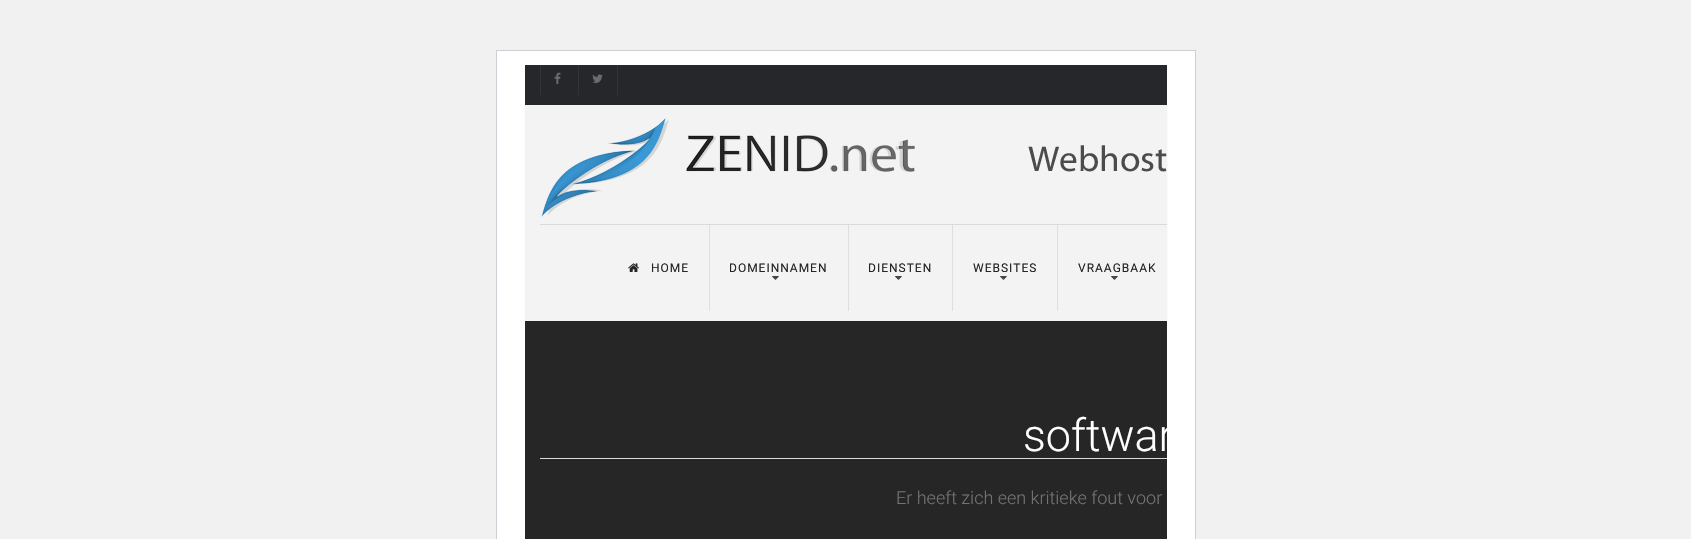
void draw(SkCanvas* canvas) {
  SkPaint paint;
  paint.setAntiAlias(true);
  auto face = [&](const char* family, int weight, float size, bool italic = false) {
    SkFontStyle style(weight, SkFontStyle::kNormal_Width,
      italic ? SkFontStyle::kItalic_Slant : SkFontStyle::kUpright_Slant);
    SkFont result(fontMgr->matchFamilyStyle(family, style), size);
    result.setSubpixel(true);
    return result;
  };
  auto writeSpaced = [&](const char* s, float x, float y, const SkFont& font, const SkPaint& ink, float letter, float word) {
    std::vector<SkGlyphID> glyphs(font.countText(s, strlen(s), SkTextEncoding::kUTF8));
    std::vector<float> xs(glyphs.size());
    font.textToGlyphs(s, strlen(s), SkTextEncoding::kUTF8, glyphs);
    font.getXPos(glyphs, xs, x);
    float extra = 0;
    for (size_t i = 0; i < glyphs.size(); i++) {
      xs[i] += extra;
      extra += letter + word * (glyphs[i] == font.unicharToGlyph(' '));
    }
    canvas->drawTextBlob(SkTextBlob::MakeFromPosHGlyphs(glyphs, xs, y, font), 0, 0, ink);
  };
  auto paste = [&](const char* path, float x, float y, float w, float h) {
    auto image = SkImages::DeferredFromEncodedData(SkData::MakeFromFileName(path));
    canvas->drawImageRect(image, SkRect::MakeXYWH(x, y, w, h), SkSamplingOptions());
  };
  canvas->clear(0xfff1f1f1);
  paint.setColor(0xffffffff);
  canvas->drawRect(SkRect::MakeXYWH(497, 51, 698, 488), paint);
  paint.setColor(0xff262626);
  canvas->drawRect(SkRect::MakeXYWH(525, 321, 642, 218), paint);
  paint.setStroke(true);
  paint.setStrokeWidth(1);
  paint.setColor(0xffccd0d4);
  canvas->drawRect(SkRect::MakeXYWH(496.5f, 50.5f, 699, 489), paint);
  paint.setStroke(false);
  paint.setColor(0xff25272b);
  canvas->drawRect(SkRect::MakeXYWH(525, 65, 642, 40), paint);
  paint.setColor(0xff323437);
  canvas->drawRect(SkRect::MakeXYWH(540, 65, 1, 30), paint);
  paste("img/1.png", 554, 72, 7, 12);
  canvas->drawRect(SkRect::MakeXYWH(617, 65, 1, 30), paint);
  canvas->drawRect(SkRect::MakeXYWH(578, 65, 1, 30), paint);
  paste("img/2.png", 592, 74, 11, 9);
  paint.setColor(0x1a080808);
  paint.setMaskFilter(SkMaskFilter::MakeBlur(kNormal_SkBlurStyle, 0.5f));
  canvas->drawRect(SkRect::MakeXYWH(525, 106, 642, 216), paint);
  paint.setMaskFilter(nullptr);
  paint.setColor(0xfff3f3f3);
  canvas->drawRect(SkRect::MakeXYWH(525, 105, 642, 216), paint);
  paint.setColor(0xffdadada);
  canvas->drawRect(SkRect::MakeXYWH(540, 224, 627, 1), paint);
  paste("img/3.png", 541, 117, 626, 100);
  paint.setColor(0xffdfdfdf);
  canvas->drawRect(SkRect::MakeXYWH(709, 225, 1, 86), paint);
  paste("img/4.png", 628, 263, 11, 9);
  canvas->drawRect(SkRect::MakeXYWH(848, 225, 1, 86), paint);
  paste("img/5.png", 772, 276, 7, 4);
  canvas->drawRect(SkRect::MakeXYWH(952, 225, 1, 86), paint);
  paste("img/5.png", 895, 276, 7, 4);
  canvas->drawRect(SkRect::MakeXYWH(1057, 225, 1, 86), paint);
  paste("img/5.png", 1000, 276, 7, 4);
  paste("img/5.png", 1111, 276, 7, 4);
  paint.setColor(0xffdadada);
  canvas->drawRect(SkRect::MakeXYWH(540, 458, 627, 1), paint);
  auto f0 = face("Roboto", 400, 12);
  paint.setColor(0xff252525);
  {
    const struct { const char* s; float x, y; } items[] = {
      {"HOME", 651, 272},
      {"DOMEINNAMEN", 729, 272},
      {"DIENSTEN", 868, 272},
      {"WEBSITES", 973, 272},
      {"VRAAGBAAK", 1078, 272},
    };
    for (auto [s, x, y] : items) {
      writeSpaced(s, x, y, f0, paint, 1, 0);
    }
  }
  canvas->save();
  canvas->clipRect(SkRect::MakeXYWH(525, 391, 642, 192));
  auto f1 = face("Roboto", 300, 45);
  paint.setColor(0xffffffff);
  canvas->drawString("softwar", 1023, 451, f1, paint);
  canvas->restore();
  auto f2 = face("Roboto", 300, 18);
  paint.setColor(0xff737373);
  canvas->drawString("Er heeft zich een kritieke fout voor", 896, 504, f2, paint);
}
